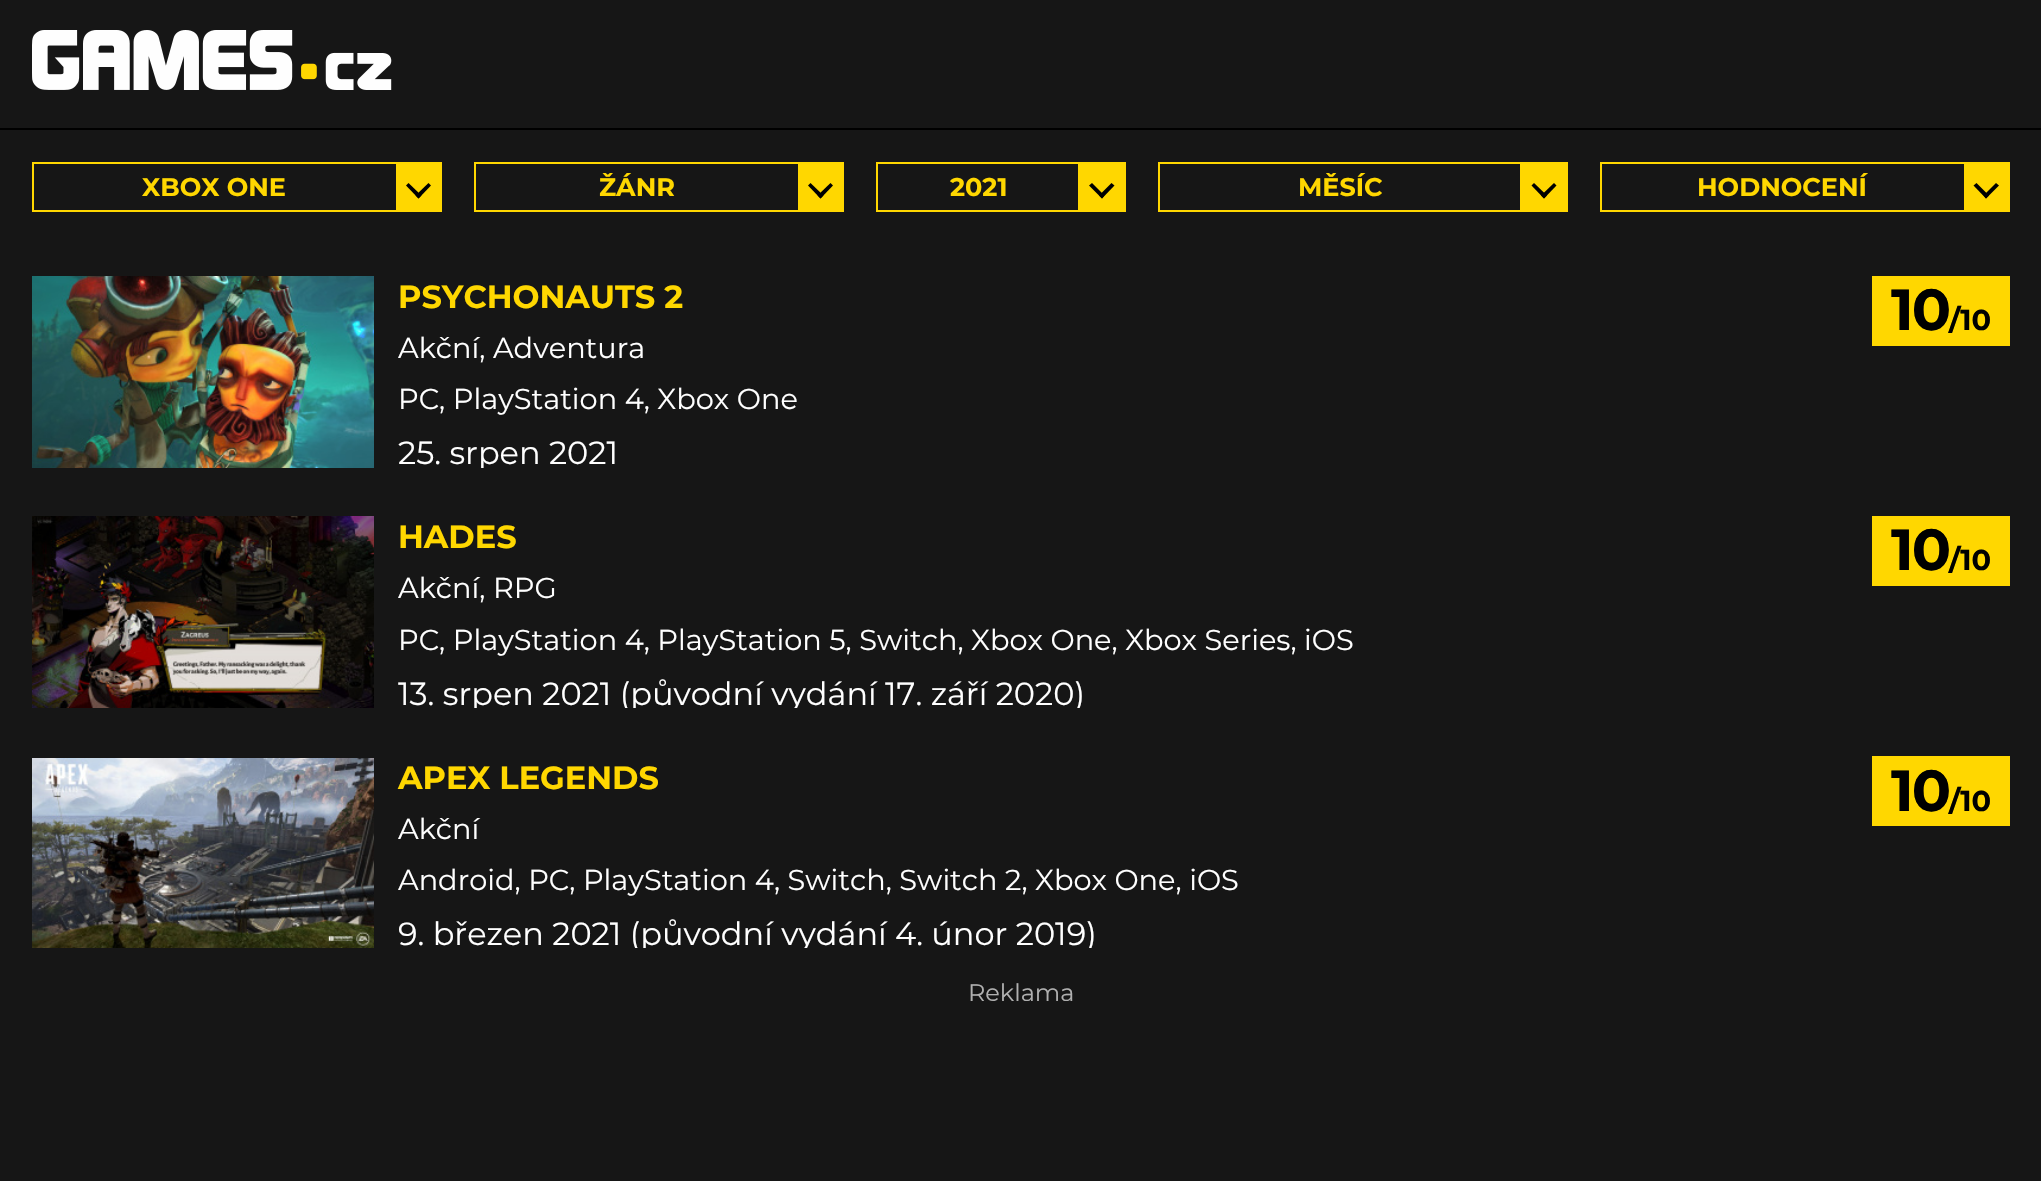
void draw(SkCanvas* canvas) {
  SkPaint paint;
  paint.setAntiAlias(true);
  auto face = [&](const char* family, int weight, float size, bool italic = false) {
    SkFontStyle style(weight, SkFontStyle::kNormal_Width,
      italic ? SkFontStyle::kItalic_Slant : SkFontStyle::kUpright_Slant);
    SkFont result(fontMgr->matchFamilyStyle(family, style), size);
    result.setSubpixel(true);
    return result;
  };
  auto writeSpaced = [&](const char* s, float x, float y, const SkFont& font, const SkPaint& ink, float letter, float word) {
    std::vector<SkGlyphID> glyphs(font.countText(s, strlen(s), SkTextEncoding::kUTF8));
    std::vector<float> xs(glyphs.size());
    font.textToGlyphs(s, strlen(s), SkTextEncoding::kUTF8, glyphs);
    font.getXPos(glyphs, xs, x);
    float extra = 0;
    for (size_t i = 0; i < glyphs.size(); i++) {
      xs[i] += extra;
      extra += letter + word * (glyphs[i] == font.unicharToGlyph(' '));
    }
    canvas->drawTextBlob(SkTextBlob::MakeFromPosHGlyphs(glyphs, xs, y, font), 0, 0, ink);
  };
  auto paste = [&](const char* path, float x, float y, float w, float h) {
    auto image = SkImages::DeferredFromEncodedData(SkData::MakeFromFileName(path));
    canvas->drawImageRect(image, SkRect::MakeXYWH(x, y, w, h), SkSamplingOptions());
  };
  auto shape = [&](const char* data, bool evenOdd = false) {
    SkPath result = *SkParsePath::FromSVGString(data);
    if (evenOdd) result.setFillType(SkPathFillType::kEvenOdd);
    return result;
  };
  canvas->clear(0xff161616);
  paint.setColor(0xff000000);
  canvas->drawRect(SkRect::MakeXYWH(0, 128, 2041, 2), paint);
  paste("img/1.png", 32, 30, 360, 60);
  paint.setStroke(true);
  paint.setStrokeWidth(2);
  paint.setColor(0xffffd700);
  canvas->drawRect(SkRect::MakeXYWH(33, 163, 408, 48), paint);
  paint.setStroke(false);
  canvas->drawRect(SkRect::MakeXYWH(396, 164, 44, 46), paint);
  paint.setColor(0xff000000);
  canvas->drawPath(shape("M431 185.5L418.5 198.5L415.5 195.5L428.5 183Z"), paint);
  canvas->drawPath(shape("M421.5 195.5L418.5 198.5L406 185.5L408.5 183Z"), paint);
  paint.setStroke(true);
  paint.setColor(0xffffd700);
  canvas->drawRect(SkRect::MakeXYWH(475, 163, 368, 48), paint);
  paint.setStroke(false);
  canvas->drawRect(SkRect::MakeXYWH(798, 164, 44, 46), paint);
  paint.setColor(0xff000000);
  canvas->drawPath(shape("M833 185.5L820.5 198.5L817.5 195.5L830.5 183Z"), paint);
  canvas->drawPath(shape("M823.5 195.5L820.5 198.5L808 185.5L810.5 183Z"), paint);
  paint.setStroke(true);
  paint.setColor(0xffffd700);
  canvas->drawRect(SkRect::MakeXYWH(877, 163, 248, 48), paint);
  paint.setStroke(false);
  canvas->drawRect(SkRect::MakeXYWH(1078, 164, 46, 46), paint);
  paint.setColor(0xff000000);
  canvas->drawPath(shape("M1114.5 185.5L1102 198.5L1099 195.5L1111.5 183Z"), paint);
  canvas->drawPath(shape("M1104.5 195.5L1102 198.5L1089 185.5L1092 183Z"), paint);
  paint.setStroke(true);
  paint.setColor(0xffffd700);
  canvas->drawRect(SkRect::MakeXYWH(1159, 163, 408, 48), paint);
  paint.setStroke(false);
  canvas->drawRect(SkRect::MakeXYWH(1520, 164, 46, 46), paint);
  paint.setColor(0xff000000);
  canvas->drawPath(shape("M1556.5 185.5L1544 198.5L1541 195.5L1554 183Z"), paint);
  canvas->drawPath(shape("M1547 195.5L1544 198.5L1531.5 185.5L1534 183Z"), paint);
  paint.setStroke(true);
  paint.setColor(0xffffd700);
  canvas->drawRect(SkRect::MakeXYWH(1601, 163, 408, 48), paint);
  paint.setStroke(false);
  canvas->drawRect(SkRect::MakeXYWH(1964, 164, 44, 46), paint);
  paint.setColor(0xff000000);
  canvas->drawPath(shape("M1999 185.5L1986 198.5L1983.5 195.5L1996 183Z"), paint);
  canvas->drawPath(shape("M1989 195.5L1986 198.5L1973.5 185.5L1976.5 183Z"), paint);
  paste("img/2.png", 32, 276, 342, 192);
  paint.setColor(0xffffd700);
  canvas->drawRect(SkRect::MakeXYWH(1872, 276, 138, 70), paint);
  paste("img/3.png", 32, 516, 342, 192);
  canvas->drawRect(SkRect::MakeXYWH(1872, 516, 138, 70), paint);
  paste("img/4.png", 32, 758, 342, 190);
  canvas->drawRect(SkRect::MakeXYWH(1872, 756, 138, 70), paint);
  auto f0 = face("Montserrat", 700, 25.5f);
  {
    const struct { const char* s; float x, y; } items[] = {
      {"XBOX ONE", 142, 196},
      {"ŽÁNR", 599, 196},
      {"2021", 950, 196},
      {"MĚSÍC", 1298, 196},
      {"HODNOCENÍ", 1697, 196},
    };
    for (auto [s, x, y] : items) {
      canvas->drawString(s, x, y, f0, paint);
    }
  }
  auto f1 = face("Montserrat", 700, 32);
  canvas->drawString("PSYCHONAUTS 2", 398, 308, f1, paint);
  auto f2 = face("Montserrat", 400, 28.8f);
  paint.setColor(0xffffffff);
  canvas->drawString("Akční, Adventura", 398, 358, f2, paint);
  canvas->drawString("PC, PlayStation 4, Xbox One", 398, 409, f2, paint);
  canvas->save();
  canvas->clipRect(SkRect::MakeXYWH(398, 276, 1612, 192));
  auto f3 = face("Montserrat", 400, 32);
  canvas->drawString("25. srpen 2021", 398, 464, f3, paint);
  canvas->restore();
  auto f4 = face("Montserrat", 700, 58);
  paint.setColor(0xff000000);
  writeSpaced("10", 1891, 330, f4, paint, -2, 0);
  auto f5 = face("Montserrat", 700, 28.8f);
  canvas->drawString("/10", 1949, 330, f5, paint);
  paint.setColor(0xffffd700);
  canvas->drawString("HADES", 398, 548, f1, paint);
  paint.setColor(0xffffffff);
  canvas->drawString("Akční, RPG", 398, 598, f2, paint);
  canvas->drawString("PC, PlayStation 4, PlayStation 5, Switch, Xbox One, Xbox Series, iOS", 398, 650, f2, paint);
  canvas->save();
  canvas->clipRect(SkRect::MakeXYWH(398, 516, 1612, 192));
  canvas->drawString("13. srpen 2021 (původní vydání 17. září 2020)", 398, 705, f3, paint);
  canvas->restore();
  paint.setColor(0xff000000);
  writeSpaced("10", 1891, 570, f4, paint, -2, 0);
  canvas->drawString("/10", 1949, 570, f5, paint);
  paint.setColor(0xffffd700);
  canvas->drawString("APEX LEGENDS", 398, 789, f1, paint);
  paint.setColor(0xffffffff);
  canvas->drawString("Akční", 398, 839, f2, paint);
  canvas->drawString("Android, PC, PlayStation 4, Switch, Switch 2, Xbox One, iOS", 398, 890, f2, paint);
  canvas->save();
  canvas->clipRect(SkRect::MakeXYWH(398, 756, 1612, 192));
  canvas->drawString("9. březen 2021 (původní vydání 4. únor 2019)", 398, 945, f3, paint);
  canvas->restore();
  paint.setColor(0xff000000);
  writeSpaced("10", 1891, 811, f4, paint, -2, 0);
  canvas->drawString("/10", 1949, 811, f5, paint);
  auto f6 = face("Montserrat", 400, 24);
  paint.setColor(0xffb0b0b0);
  canvas->drawString("Reklama", 968, 1001, f6, paint);
}
